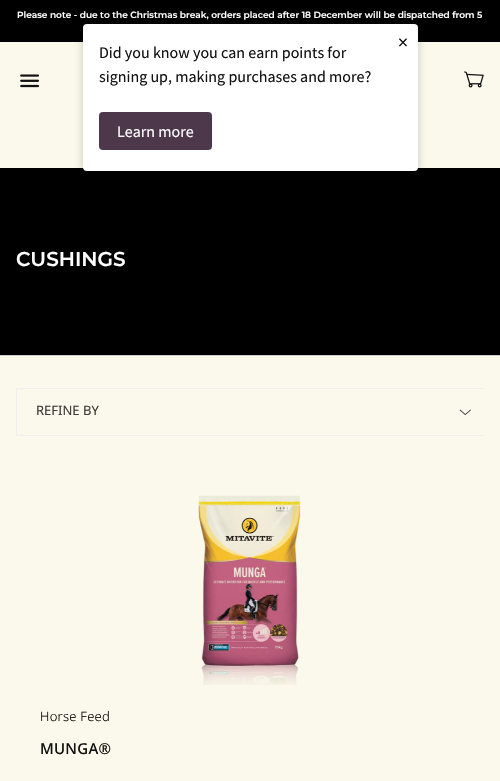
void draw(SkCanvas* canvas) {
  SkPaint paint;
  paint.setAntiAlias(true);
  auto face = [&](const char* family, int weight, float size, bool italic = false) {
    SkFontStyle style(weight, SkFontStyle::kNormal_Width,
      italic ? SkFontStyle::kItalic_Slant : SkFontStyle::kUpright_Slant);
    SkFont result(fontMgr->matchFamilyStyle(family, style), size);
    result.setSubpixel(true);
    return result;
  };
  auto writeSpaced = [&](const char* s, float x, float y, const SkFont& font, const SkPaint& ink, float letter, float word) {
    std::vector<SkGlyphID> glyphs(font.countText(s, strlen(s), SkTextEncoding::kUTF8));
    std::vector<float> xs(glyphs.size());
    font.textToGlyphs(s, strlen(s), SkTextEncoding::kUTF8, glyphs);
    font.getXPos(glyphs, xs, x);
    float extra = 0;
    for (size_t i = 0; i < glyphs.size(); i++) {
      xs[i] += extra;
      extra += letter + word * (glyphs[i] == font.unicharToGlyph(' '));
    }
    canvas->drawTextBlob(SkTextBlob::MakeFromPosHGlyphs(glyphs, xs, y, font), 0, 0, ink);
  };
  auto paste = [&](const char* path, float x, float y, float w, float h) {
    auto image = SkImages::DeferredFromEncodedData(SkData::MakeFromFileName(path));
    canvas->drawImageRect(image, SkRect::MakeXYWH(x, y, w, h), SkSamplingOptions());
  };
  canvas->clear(0xfffaf9eb);
  paint.setColor(0xff000000);
  canvas->drawRect(SkRect::MakeXYWH(0, 0, 500, 42), paint);
  canvas->drawRect(SkRect::MakeXYWH(0, 168, 500, 187), paint);
  paint.setColor(0x33000000);
  paint.setMaskFilter(SkMaskFilter::MakeBlur(kNormal_SkBlurStyle, 4));
  canvas->drawRoundRect(SkRect::MakeXYWH(83, 26, 335, 147), 4, 4, paint);
  paint.setMaskFilter(nullptr);
  paint.setColor(0xffffffff);
  canvas->drawRoundRect(SkRect::MakeXYWH(83, 24, 335, 147), 4, 4, paint);
  paint.setColor(0xff4d384b);
  canvas->drawRoundRect(SkRect::MakeXYWH(99, 112, 113, 38), 4, 4, paint);
  paste("img/1.png", 20, 74, 19, 14);
  paste("img/2.png", 464, 71, 20, 17);
  {
    const struct { float x, y, w, h; SkColor color; } items[] = {
      {0, 355, 500, 1, 0xffcecece},
      {16, 388, 468, 1, 0xffefefef},
      {16, 435, 468, 1, 0xffefefef},
      {16, 388, 1, 48, 0xffefefef},
    };
    for (auto [x, y, w, h, color] : items) {
      paint.setColor(color);
      canvas->drawRect(SkRect::MakeXYWH(x, y, w, h), paint);
    }
  }
  paste("img/3.png", 459, 409, 12, 6);
  paste("img/4.png", 198, 495, 103, 190);
  auto f0 = face("Montserrat", 600, 9);
  paint.setColor(0xffffffff);
  canvas->drawString("Please note - due to the Christmas break, orders placed after 18 December will be dispatched from 5", 17, 18, f0, paint);
  auto f1 = face("Source Sans Pro", 400, 20);
  paint.setColor(0xff121212);
  canvas->drawString("×", 398, 49, f1, paint);
  auto f2 = face("Source Sans Pro", 400, 16);
  canvas->drawString("Did you know you can earn points for", 99, 58, f2, paint);
  canvas->drawString("signing up, making purchases and more?", 99, 82, f2, paint);
  paint.setColor(0xffffffff);
  canvas->drawString("Learn more", 117, 137, f2, paint);
  auto f3 = face("Montserrat", 600, 20);
  canvas->drawString("CUSHINGS", 16, 266, f3, paint);
  auto f4 = face("Noto Sans", 400, 13);
  paint.setColor(0xff3d3d3b);
  canvas->drawString("REFINE BY", 36, 415, f4, paint);
  auto f5 = face("Noto Sans", 300, 13);
  paint.setColor(0xff080808);
  writeSpaced("Horse Feed", 40, 721, f5, paint, 0.25f, 0);
  auto f6 = face("Noto Sans", 500, 15);
  paint.setColor(0xff121212);
  writeSpaced("MUNGA®", 40, 754, f6, paint, 0.25f, 0);
}
